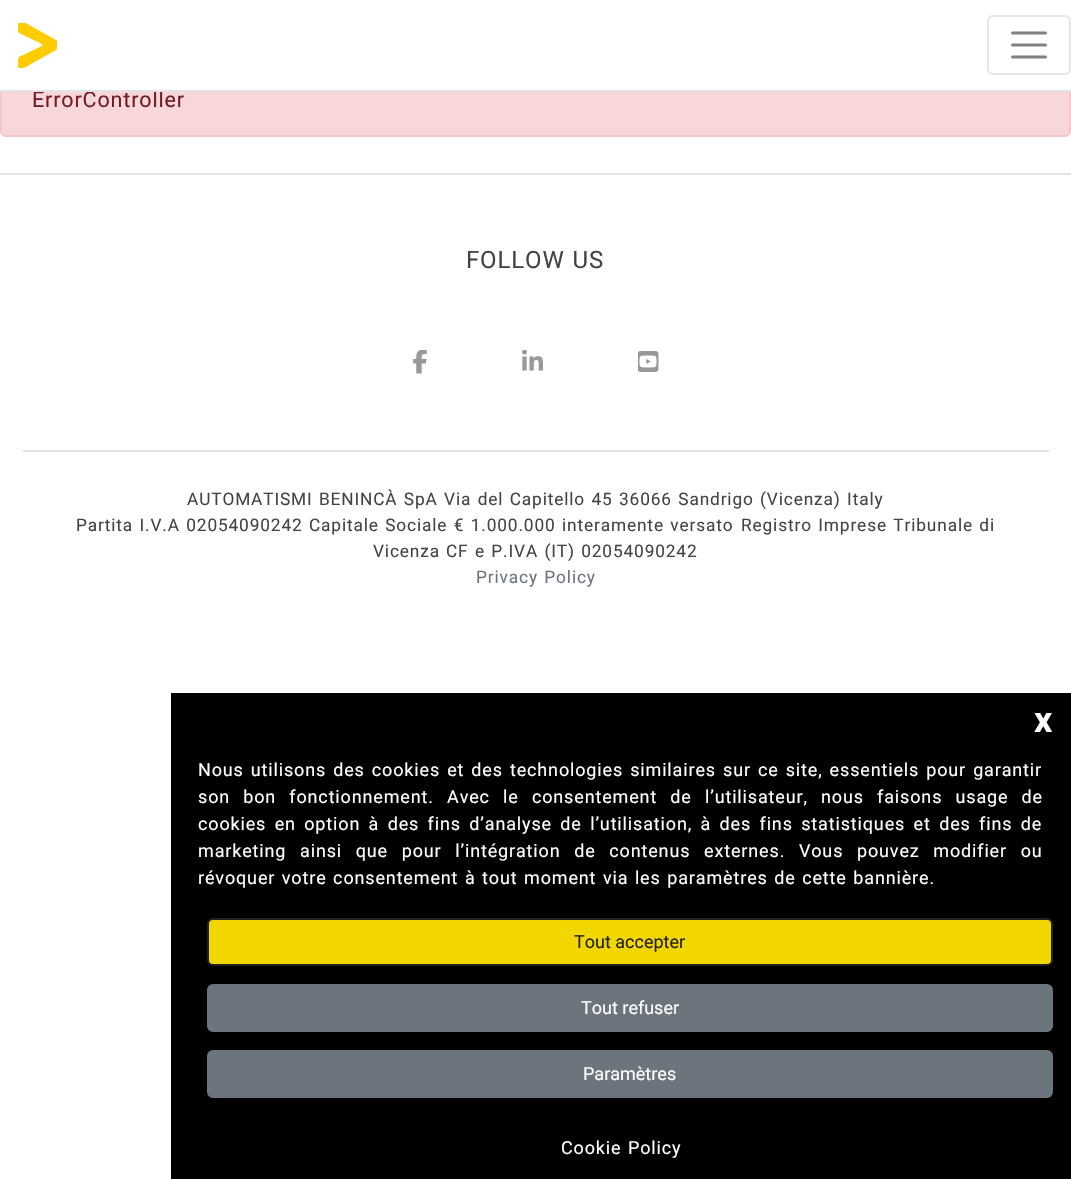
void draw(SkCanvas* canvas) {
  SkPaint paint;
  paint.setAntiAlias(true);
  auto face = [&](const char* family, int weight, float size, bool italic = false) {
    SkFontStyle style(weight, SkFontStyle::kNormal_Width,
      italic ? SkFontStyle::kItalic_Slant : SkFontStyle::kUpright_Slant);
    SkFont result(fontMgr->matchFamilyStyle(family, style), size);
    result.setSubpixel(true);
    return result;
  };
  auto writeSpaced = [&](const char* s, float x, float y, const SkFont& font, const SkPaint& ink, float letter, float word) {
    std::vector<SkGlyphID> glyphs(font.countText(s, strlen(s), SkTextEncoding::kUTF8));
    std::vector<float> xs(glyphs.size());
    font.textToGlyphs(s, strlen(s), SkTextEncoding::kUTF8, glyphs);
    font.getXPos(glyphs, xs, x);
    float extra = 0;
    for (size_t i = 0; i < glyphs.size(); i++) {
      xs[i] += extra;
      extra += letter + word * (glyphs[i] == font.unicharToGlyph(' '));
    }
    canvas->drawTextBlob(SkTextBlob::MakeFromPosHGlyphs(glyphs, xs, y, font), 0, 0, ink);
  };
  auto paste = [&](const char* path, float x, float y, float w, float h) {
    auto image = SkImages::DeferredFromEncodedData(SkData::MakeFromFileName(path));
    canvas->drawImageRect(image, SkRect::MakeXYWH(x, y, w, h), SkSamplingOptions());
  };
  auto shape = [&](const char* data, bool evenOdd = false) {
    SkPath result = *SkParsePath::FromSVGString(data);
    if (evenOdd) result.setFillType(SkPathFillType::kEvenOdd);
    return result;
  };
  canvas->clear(0xffffffff);
  paint.setColor(0xfff8d7da);
  canvas->drawRoundRect(SkRect::MakeXYWH(1, 1, 1069, 135), 5, 5, paint);
  paint.setStroke(true);
  paint.setStrokeWidth(2);
  paint.setColor(0xfff5c6cb);
  canvas->drawRoundRect(SkRect::MakeXYWH(1, 1, 1069, 135), 5, 5, paint);
  paint.setStroke(false);
  paint.setColor(0xffffffff);
  canvas->drawRect(SkRect::MakeXYWH(0, 0, 1071, 90), paint);
  canvas->save();
  canvas->clipRect(SkRect::MakeXYWH(15, 23, 45, 45));
  paint.setColor(0xffffcc00);
  canvas->drawPath(shape("M24 22H19L18 23V32L19 33L42 44V46L19 57L18 59V67L19 68H24L56 50L57 49V41L56 40Z"), paint);
  canvas->restore();
  paint.setStroke(true);
  paint.setColor(0xffe6e6e6);
  canvas->drawRoundRect(SkRect::MakeXYWH(988, 16, 82, 58), 5, 5, paint);
  paint.setStrokeWidth(3);
  paint.setStrokeCap(SkPaint::kRound_Cap);
  paint.setColor(0xff808080);
  canvas->drawPath(shape("M1012.5 33H1045.5M1012.5 45H1045.5M1012.5 57H1045.5"), paint);
  paint.setStroke(false);
  paint.setColor(0xffe3e3e3);
  canvas->drawRect(SkRect::MakeXYWH(0, 173, 1071, 2), paint);
  paste("img/1.png", 413, 350, 14, 24);
  paste("img/2.png", 522, 350, 21, 21);
  paste("img/3.png", 638, 351, 21, 21);
  canvas->drawRect(SkRect::MakeXYWH(23, 450, 1026, 2), paint);
  paint.setColor(0xff000000);
  canvas->drawRect(SkRect::MakeXYWH(171, 693, 900, 486), paint);
  paint.setColor(0xfff1d600);
  canvas->drawRoundRect(SkRect::MakeXYWH(208, 919, 844, 46), 5, 5, paint);
  paint.setStroke(true);
  paint.setStrokeWidth(2);
  paint.setStrokeCap(SkPaint::kButt_Cap);
  paint.setColor(0xff222222);
  canvas->drawRoundRect(SkRect::MakeXYWH(208, 919, 844, 46), 5, 5, paint);
  paint.setStroke(false);
  paint.setColor(0xff6c757d);
  canvas->drawRoundRect(SkRect::MakeXYWH(208, 985, 844, 46), 5, 5, paint);
  paint.setStroke(true);
  canvas->drawRoundRect(SkRect::MakeXYWH(208, 985, 844, 46), 5, 5, paint);
  paint.setStroke(false);
  canvas->drawRoundRect(SkRect::MakeXYWH(208, 1051, 844, 46), 5, 5, paint);
  paint.setStroke(true);
  canvas->drawRoundRect(SkRect::MakeXYWH(208, 1051, 844, 46), 5, 5, paint);
  auto f0 = face("Roboto", 400, 21.5f);
  paint.setStroke(false);
  paint.setColor(0xff721c24);
  writeSpaced("ErrorController", 32, 107, f0, paint, 0.85f, 0);
  paint.setColor(0xffe3e3e3);
  canvas->drawRect(SkRect::MakeXYWH(0, 90, 1071, 2), paint);
  auto f1 = face("Roboto", 400, 24);
  paint.setColor(0xff444444);
  writeSpaced("FOLLOW US", 466, 268, f1, paint, 0.85f, 1.25f);
  auto f2 = face("Roboto", 400, 17.3f);
  {
    const struct { const char* s; float x, y; } items[] = {
      {"AUTOMATISMI BENINCÀ SpA Via del Capitello 45 36066 Sandrigo (Vicenza) Italy", 187, 505},
      {"Partita I.V.A 02054090242", 76, 531},
      {"Capitale Sociale € 1.000.000 interamente versato", 309, 531},
      {"Registro Imprese Tribunale di", 741, 531},
    };
    for (auto [s, x, y] : items) {
      writeSpaced(s, x, y, f2, paint, 0.85f, 1.25f);
    }
  }
  writeSpaced("Vicenza", 373, 557, f2, paint, 0.85f, 0);
  writeSpaced("CF e P.IVA (IT) 02054090242", 446, 557, f2, paint, 0.85f, 1.25f);
  paint.setColor(0xff6c757d);
  writeSpaced("Privacy Policy", 476, 583, f2, paint, 0.85f, 1.25f);
  auto f3 = face("Roboto", 700, 36);
  paint.setColor(0xffffffff);
  writeSpaced("x", 1034, 732, f3, paint, 0.85f, 0);
  auto f4 = face("Roboto", 400, 18);
  writeSpaced("Nous utilisons des cookies et des technologies similaires sur ce site, essentiels pour garantir", 198, 776, f4, paint, 0.85f, 1.75f);
  writeSpaced("son bon fonctionnement. Avec le consentement de l’utilisateur, nous faisons usage de", 198, 803, f4, paint, 0.85f, 7.9f);
  writeSpaced("cookies en option à des fins d’analyse de l’utilisation, à des fins statistiques et des fins de", 198, 830, f4, paint, 0.85f, 3.1f);
  writeSpaced("marketing ainsi que pour l’intégration de contenus externes. Vous pouvez modifier ou", 198, 857, f4, paint, 0.85f, 8.4f);
  writeSpaced("révoquer votre consentement à tout moment via les paramètres de cette bannière.", 198, 884, f4, paint, 0.85f, 1.25f);
  paint.setColor(0xff222222);
  canvas->drawString("Tout accepter", 574, 948, f4, paint);
  paint.setColor(0xffffffff);
  canvas->drawString("Tout refuser", 581, 1014, f4, paint);
  canvas->drawString("Paramètres", 583, 1080, f4, paint);
  writeSpaced("Cookie Policy", 561, 1154, f4, paint, 0.85f, 1.25f);
}
